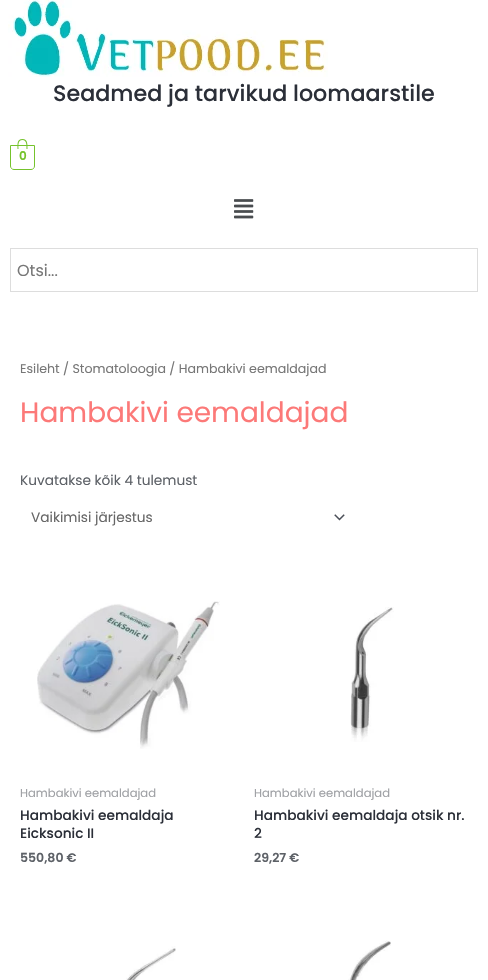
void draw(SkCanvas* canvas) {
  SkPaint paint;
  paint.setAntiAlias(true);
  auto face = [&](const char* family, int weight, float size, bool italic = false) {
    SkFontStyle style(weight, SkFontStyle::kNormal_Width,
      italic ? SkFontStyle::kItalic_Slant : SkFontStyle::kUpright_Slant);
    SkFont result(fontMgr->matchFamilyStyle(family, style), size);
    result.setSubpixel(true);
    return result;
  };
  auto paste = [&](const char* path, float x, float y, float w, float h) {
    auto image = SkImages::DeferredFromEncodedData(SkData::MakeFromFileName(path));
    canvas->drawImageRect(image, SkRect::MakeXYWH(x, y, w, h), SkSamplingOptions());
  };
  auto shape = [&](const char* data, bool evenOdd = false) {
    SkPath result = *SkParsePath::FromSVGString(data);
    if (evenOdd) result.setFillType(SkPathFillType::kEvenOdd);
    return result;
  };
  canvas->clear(0xffffffff);
  paste("img/1.png", 8, 0, 320, 77);
  paint.setStroke(true);
  paint.setStrokeWidth(1);
  paint.setColor(0xff75c32c);
  canvas->drawPath(shape("M10.5 145.5H34.5V166C34.5 168 33 169.5 31 169.5H14C12 169.5 10.5 168 10.5 166Z"), paint);
  paint.setStroke(false);
  canvas->drawPath(shape("M22.5 139C28 139 27.5 145 27.5 149H17.5C17.5 145 16.5 139 22.5 139ZM22.5 140C27 140 26.5 146 26.5 149H18.5C18.5 146 17.5 140 22.5 140Z", true), paint);
  paste("img/2.png", 234, 199, 20, 20);
  paint.setStroke(true);
  paint.setColor(0xffdddddd);
  canvas->drawRect(SkRect::MakeXYWH(10.5f, 248.5f, 467, 43), paint);
  paste("img/3.png", 334, 514, 11, 7);
  paste("img/4.png", 37, 601, 183, 148);
  paste("img/5.png", 350, 607, 44, 135);
  paste("img/6.png", 126, 946, 50, 34);
  paste("img/7.png", 348, 940, 43, 40);
  auto f0 = face("Poppins", 500, 22.25f);
  paint.setStroke(false);
  paint.setColor(0xff2b2f38);
  canvas->drawString("Seadmed ja tarvikud loomaarstile", 53, 101, f0, paint);
  auto f1 = face("Poppins", 600, 12);
  paint.setColor(0xff75c32c);
  canvas->drawString("0", 19, 160, f1, paint);
  auto f2 = face("Poppins", 400, 16);
  paint.setColor(0xff777777);
  canvas->drawString("Otsi...", 17, 276, f2, paint);
  auto f3 = face("Poppins", 400, 12.6f);
  canvas->drawString("Esileht / Stomatoloogia / Hambakivi eemaldajad", 20, 373, f3, paint);
  auto f4 = face("Poppins", 400, 28);
  paint.setColor(0xfffc7978);
  canvas->drawString("Hambakivi eemaldajad", 20, 422, f4, paint);
  auto f5 = face("Poppins", 400, 13.7f);
  paint.setColor(0xff5d6167);
  canvas->drawString("Kuvatakse kõik 4 tulemust", 20, 485, f5, paint);
  paint.setColor(0xff666666);
  canvas->drawString("Vaikimisi järjestus", 31, 522, f5, paint);
  auto f6 = face("Poppins", 400, 11.6f);
  paint.setColor(0xff9ea0a4);
  canvas->drawString("Hambakivi eemaldajad", 20, 797, f6, paint);
  auto f7 = face("Poppins", 500, 13.7f);
  paint.setColor(0xff2b2f38);
  canvas->drawString("Hambakivi eemaldaja", 20, 820, f7, paint);
  canvas->drawString("Eicksonic II", 20, 838, f7, paint);
  auto f8 = face("Poppins", 600, 12.5f);
  paint.setColor(0xff5d6167);
  canvas->drawString("550,80 €", 20, 862, f8, paint);
  paint.setColor(0xff9ea0a4);
  canvas->drawString("Hambakivi eemaldajad", 254, 797, f6, paint);
  paint.setColor(0xff2b2f38);
  canvas->drawString("Hambakivi eemaldaja otsik nr.", 254, 820, f7, paint);
  canvas->drawString("2", 254, 838, f7, paint);
  paint.setColor(0xff5d6167);
  canvas->drawString("29,27 €", 254, 862, f8, paint);
}
